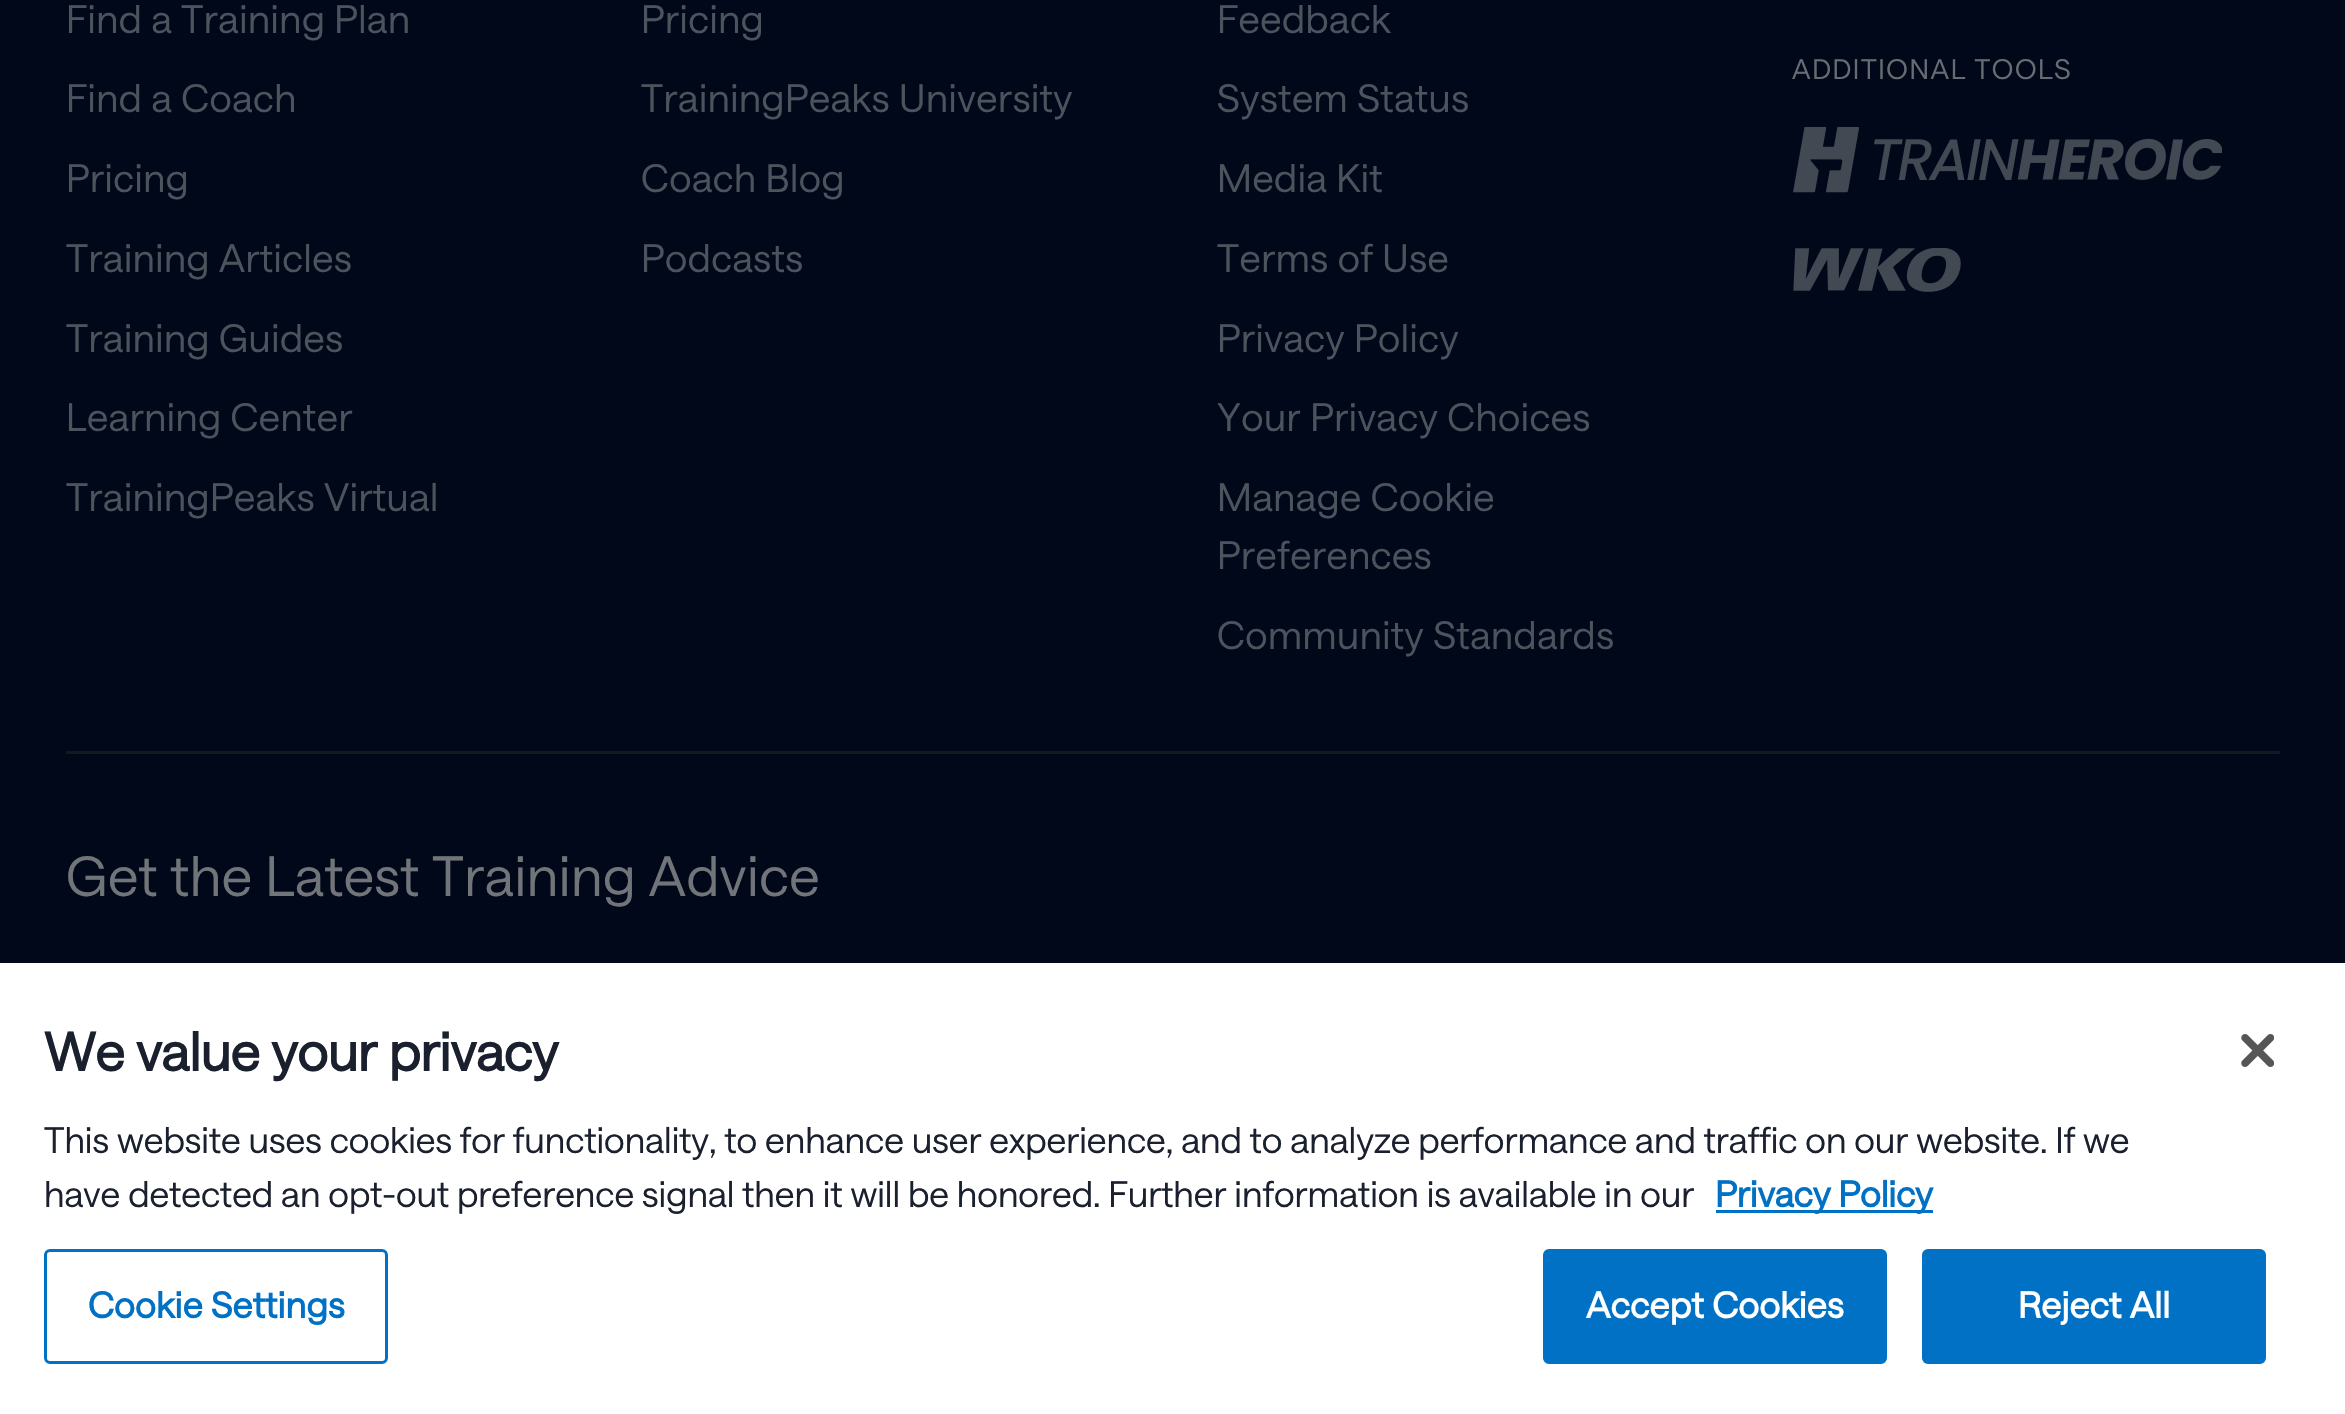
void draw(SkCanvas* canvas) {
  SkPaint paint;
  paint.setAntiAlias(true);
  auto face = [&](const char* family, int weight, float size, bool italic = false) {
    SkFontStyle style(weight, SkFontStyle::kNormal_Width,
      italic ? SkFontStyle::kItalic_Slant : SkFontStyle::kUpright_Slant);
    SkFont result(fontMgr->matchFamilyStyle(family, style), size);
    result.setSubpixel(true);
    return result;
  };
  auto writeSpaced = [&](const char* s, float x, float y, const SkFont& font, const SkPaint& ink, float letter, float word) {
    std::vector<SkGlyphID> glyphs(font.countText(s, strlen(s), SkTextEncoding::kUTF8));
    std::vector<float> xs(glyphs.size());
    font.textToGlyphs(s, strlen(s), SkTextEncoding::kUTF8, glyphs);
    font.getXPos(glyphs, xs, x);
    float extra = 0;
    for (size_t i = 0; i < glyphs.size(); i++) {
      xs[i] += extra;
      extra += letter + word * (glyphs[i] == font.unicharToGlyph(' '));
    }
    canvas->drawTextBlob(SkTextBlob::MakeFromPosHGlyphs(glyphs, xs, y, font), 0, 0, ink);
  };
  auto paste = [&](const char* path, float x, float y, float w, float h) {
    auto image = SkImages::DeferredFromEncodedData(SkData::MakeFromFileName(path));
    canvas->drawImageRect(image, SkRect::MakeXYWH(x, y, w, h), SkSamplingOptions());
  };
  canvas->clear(0xff010819);
  paste("img/1.png", 1793, 127, 429, 66);
  paste("img/2.png", 1793, 248, 168, 44);
  {
    const struct { float x, y, w, h; SkColor color; } items[] = {
      {66, 751, 2214, 3, 0xff141820},
      {0, 963, 2345, 451, 0xffffffff},
      {1716, 1210, 217, 3, 0xff0071c4},
    };
    for (auto [x, y, w, h, color] : items) {
      paint.setColor(color);
      canvas->drawRect(SkRect::MakeXYWH(x, y, w, h), paint);
    }
  }
  paint.setStroke(true);
  paint.setStrokeWidth(3);
  canvas->drawRoundRect(SkRect::MakeXYWH(45.5f, 1250.5f, 341, 112), 4.5f, 4.5f, paint);
  paint.setStroke(false);
  canvas->drawRoundRect(SkRect::MakeXYWH(1544.5f, 1250.5f, 341, 112), 4.5f, 4.5f, paint);
  paint.setStroke(true);
  canvas->drawRoundRect(SkRect::MakeXYWH(1544.5f, 1250.5f, 341, 112), 4.5f, 4.5f, paint);
  paint.setStroke(false);
  canvas->drawRoundRect(SkRect::MakeXYWH(1923.5f, 1250.5f, 341, 112), 4.5f, 4.5f, paint);
  paint.setStroke(true);
  canvas->drawRoundRect(SkRect::MakeXYWH(1923.5f, 1250.5f, 341, 112), 4.5f, 4.5f, paint);
  paste("img/3.png", 2241, 1034, 33, 33);
  auto f0 = face("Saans", 400, 38.5f);
  paint.setStroke(false);
  paint.setColor(0xff4c535d);
  {
    const struct { const char* s; float x, y; } items[] = {
      {"Find a Training Plan", 66, 33},
      {"Find a Coach", 66, 112},
      {"Pricing", 66, 192},
      {"Training Articles", 66, 272},
      {"Training Guides", 66, 352},
      {"Learning Center", 66, 431},
      {"TrainingPeaks Virtual", 66, 511},
      {"Pricing", 641, 33},
      {"TrainingPeaks University", 641, 112},
      {"Coach Blog", 641, 192},
      {"Podcasts", 641, 272},
      {"Feedback", 1217, 33},
      {"System Status", 1217, 112},
      {"Media Kit", 1217, 192},
      {"Terms of Use", 1217, 272},
      {"Privacy Policy", 1217, 352},
      {"Your Privacy Choices", 1217, 431},
      {"Manage Cookie", 1217, 511},
      {"Preferences", 1217, 569},
      {"Community Standards", 1217, 649},
    };
    for (auto [s, x, y] : items) {
      writeSpaced(s, x, y, f0, paint, 0.55f, 0);
    }
  }
  auto f1 = face("Saans", 400, 27.5f);
  paint.setColor(0xff686c72);
  writeSpaced("ADDITIONAL TOOLS", 1792, 79, f1, paint, 1.6f, 0);
  auto f2 = face("Saans", 400, 55);
  paint.setColor(0xff717478);
  writeSpaced("Get the Latest Training Advice", 66, 896, f2, paint, 0.55f, 0);
  auto f3 = face("Saans", 700, 52.75f);
  paint.setColor(0xff1a202e);
  canvas->drawString("We value your privacy", 44, 1071, f3, paint);
  auto f4 = face("Saans", 400, 35.77f);
  canvas->drawString("This website uses cookies for functionality, to enhance user experience, and to analyze performance and traffic on our website. If we", 44, 1153, f4, paint);
  canvas->drawString("have detected an opt-out preference signal then it will be honored. Further information is available in our", 44, 1207, f4, paint);
  auto f5 = face("Saans", 700, 35.77f);
  paint.setColor(0xff0071c4);
  canvas->drawString("Privacy Policy", 1715, 1207, f5, paint);
  writeSpaced("Cookie Settings", 88, 1318, f5, paint, 0.4f, 0);
  paint.setColor(0xffffffff);
  writeSpaced("Accept Cookies", 1586, 1318, f5, paint, 0.4f, 0);
  writeSpaced("Reject All", 2018, 1318, f5, paint, 0.4f, 0);
}
